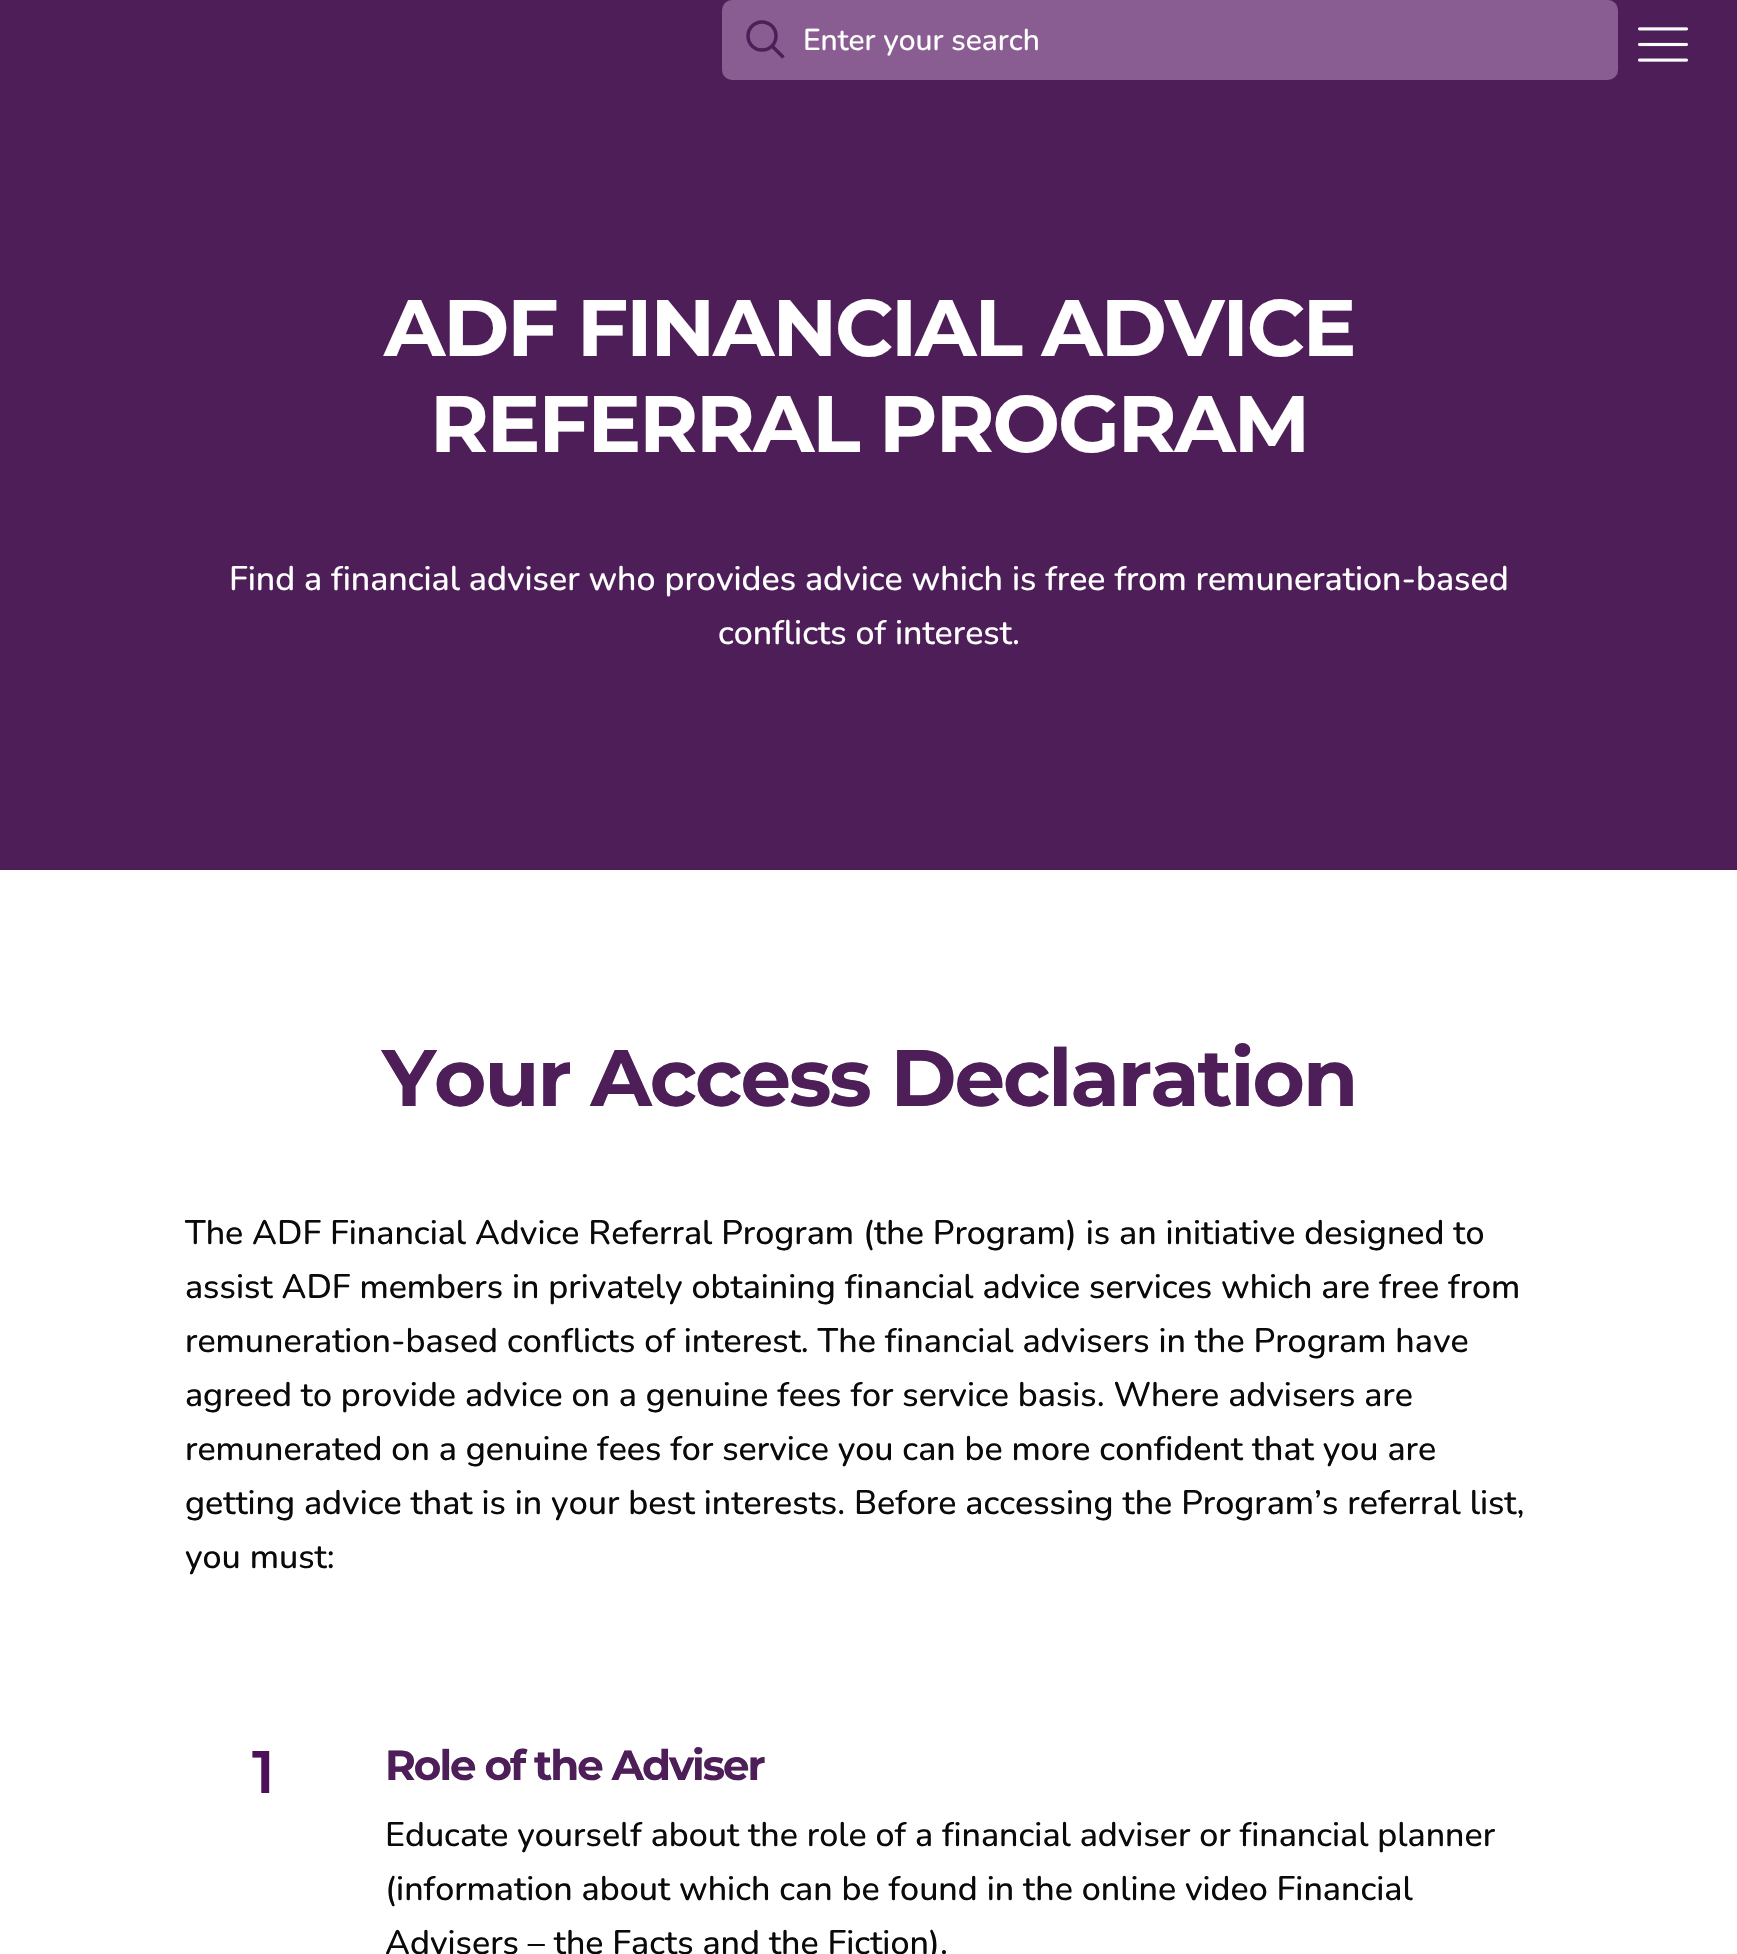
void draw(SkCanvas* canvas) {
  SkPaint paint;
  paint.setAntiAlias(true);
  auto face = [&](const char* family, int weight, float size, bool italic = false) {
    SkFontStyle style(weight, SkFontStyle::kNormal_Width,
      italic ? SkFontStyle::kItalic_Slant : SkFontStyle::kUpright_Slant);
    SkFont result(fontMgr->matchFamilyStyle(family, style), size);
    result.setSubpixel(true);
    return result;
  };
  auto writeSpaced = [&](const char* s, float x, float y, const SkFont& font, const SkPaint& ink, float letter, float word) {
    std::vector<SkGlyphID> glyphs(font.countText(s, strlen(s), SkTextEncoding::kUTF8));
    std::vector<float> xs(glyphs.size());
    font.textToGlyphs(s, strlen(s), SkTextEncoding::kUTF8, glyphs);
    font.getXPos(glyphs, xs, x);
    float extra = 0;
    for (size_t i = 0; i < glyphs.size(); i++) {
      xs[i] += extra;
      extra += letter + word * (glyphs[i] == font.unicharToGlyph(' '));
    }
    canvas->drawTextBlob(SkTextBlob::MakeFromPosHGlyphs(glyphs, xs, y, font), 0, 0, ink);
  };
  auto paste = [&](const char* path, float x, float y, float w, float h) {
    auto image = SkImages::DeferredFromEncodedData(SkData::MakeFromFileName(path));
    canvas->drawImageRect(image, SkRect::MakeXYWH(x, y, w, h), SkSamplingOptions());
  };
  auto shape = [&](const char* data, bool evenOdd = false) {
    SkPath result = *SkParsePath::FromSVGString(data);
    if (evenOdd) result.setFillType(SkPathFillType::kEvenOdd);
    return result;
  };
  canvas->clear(0xffffffff);
  paint.setColor(0xff4d1e58);
  canvas->drawRect(SkRect::MakeXYWH(0, 0, 1737, 870), paint);
  paint.setColor(0xff895d92);
  canvas->drawRoundRect(SkRect::MakeXYWH(722, 0, 896, 80), 10, 10, paint);
  paint.setStroke(true);
  paint.setStrokeWidth(3.5f);
  paint.setColor(0xff4d1e58);
  canvas->drawCircle(762, 36, 14, paint);
  canvas->drawPath(shape("M772 46L783.5 57.5"), paint);
  paste("img/1.png", 1638, 27, 50, 35);
  auto f0 = face("Nunito", 500, 30);
  paint.setStroke(false);
  paint.setColor(0xffffffff);
  canvas->drawString("Enter your search", 803, 50, f0, paint);
  auto f1 = face("Montserrat", 700, 80);
  writeSpaced("ADF FINANCIAL ADVICE", 384, 356, f1, paint, -2, 0);
  writeSpaced("REFERRAL PROGRAM", 430, 452, f1, paint, -2, 0);
  auto f2 = face("Nunito", 500, 34);
  canvas->drawString("Find a financial adviser who provides advice which is free from remuneration-based", 229, 590, f2, paint);
  canvas->drawString("conflicts of interest.", 718, 644, f2, paint);
  paint.setColor(0xff4d1e58);
  writeSpaced("Your Access Declaration", 382, 1106, f1, paint, -2, 0);
  paint.setColor(0xff0a0a0a);
  {
    const struct { const char* s; float x, y; } items[] = {
      {"The ADF Financial Advice Referral Program (the Program) is an initiative designed to", 185, 1244},
      {"assist ADF members in privately obtaining financial advice services which are free from", 185, 1298},
      {"remuneration-based conflicts of interest. The financial advisers in the Program have", 185, 1352},
      {"agreed to provide advice on a genuine fees for service basis. Where advisers are", 185, 1406},
      {"remunerated on a genuine fees for service you can be more confident that you are", 185, 1460},
      {"getting advice that is in your best interests. Before accessing the Program’s referral list,", 185, 1514},
      {"you must:", 185, 1568},
    };
    for (auto [s, x, y] : items) {
      canvas->drawString(s, x, y, f2, paint);
    }
  }
  auto f3 = face("Montserrat", 600, 60);
  paint.setColor(0xff4c1158);
  canvas->drawString("1", 252, 1793, f3, paint);
  auto f4 = face("Montserrat", 700, 42);
  paint.setColor(0xff4d1e58);
  writeSpaced("Role of the Adviser", 385, 1780, f4, paint, -2, 0);
  paint.setColor(0xff0a0a0a);
  {
    const struct { const char* s; float x, y; } items[] = {
      {"Educate yourself about the role of a financial adviser or financial planner", 385, 1846},
      {"(information about which can be found in the online video Financial", 385, 1900},
      {"Advisers – the Facts and the Fiction).", 385, 1954},
    };
    for (auto [s, x, y] : items) {
      canvas->drawString(s, x, y, f2, paint);
    }
  }
}
